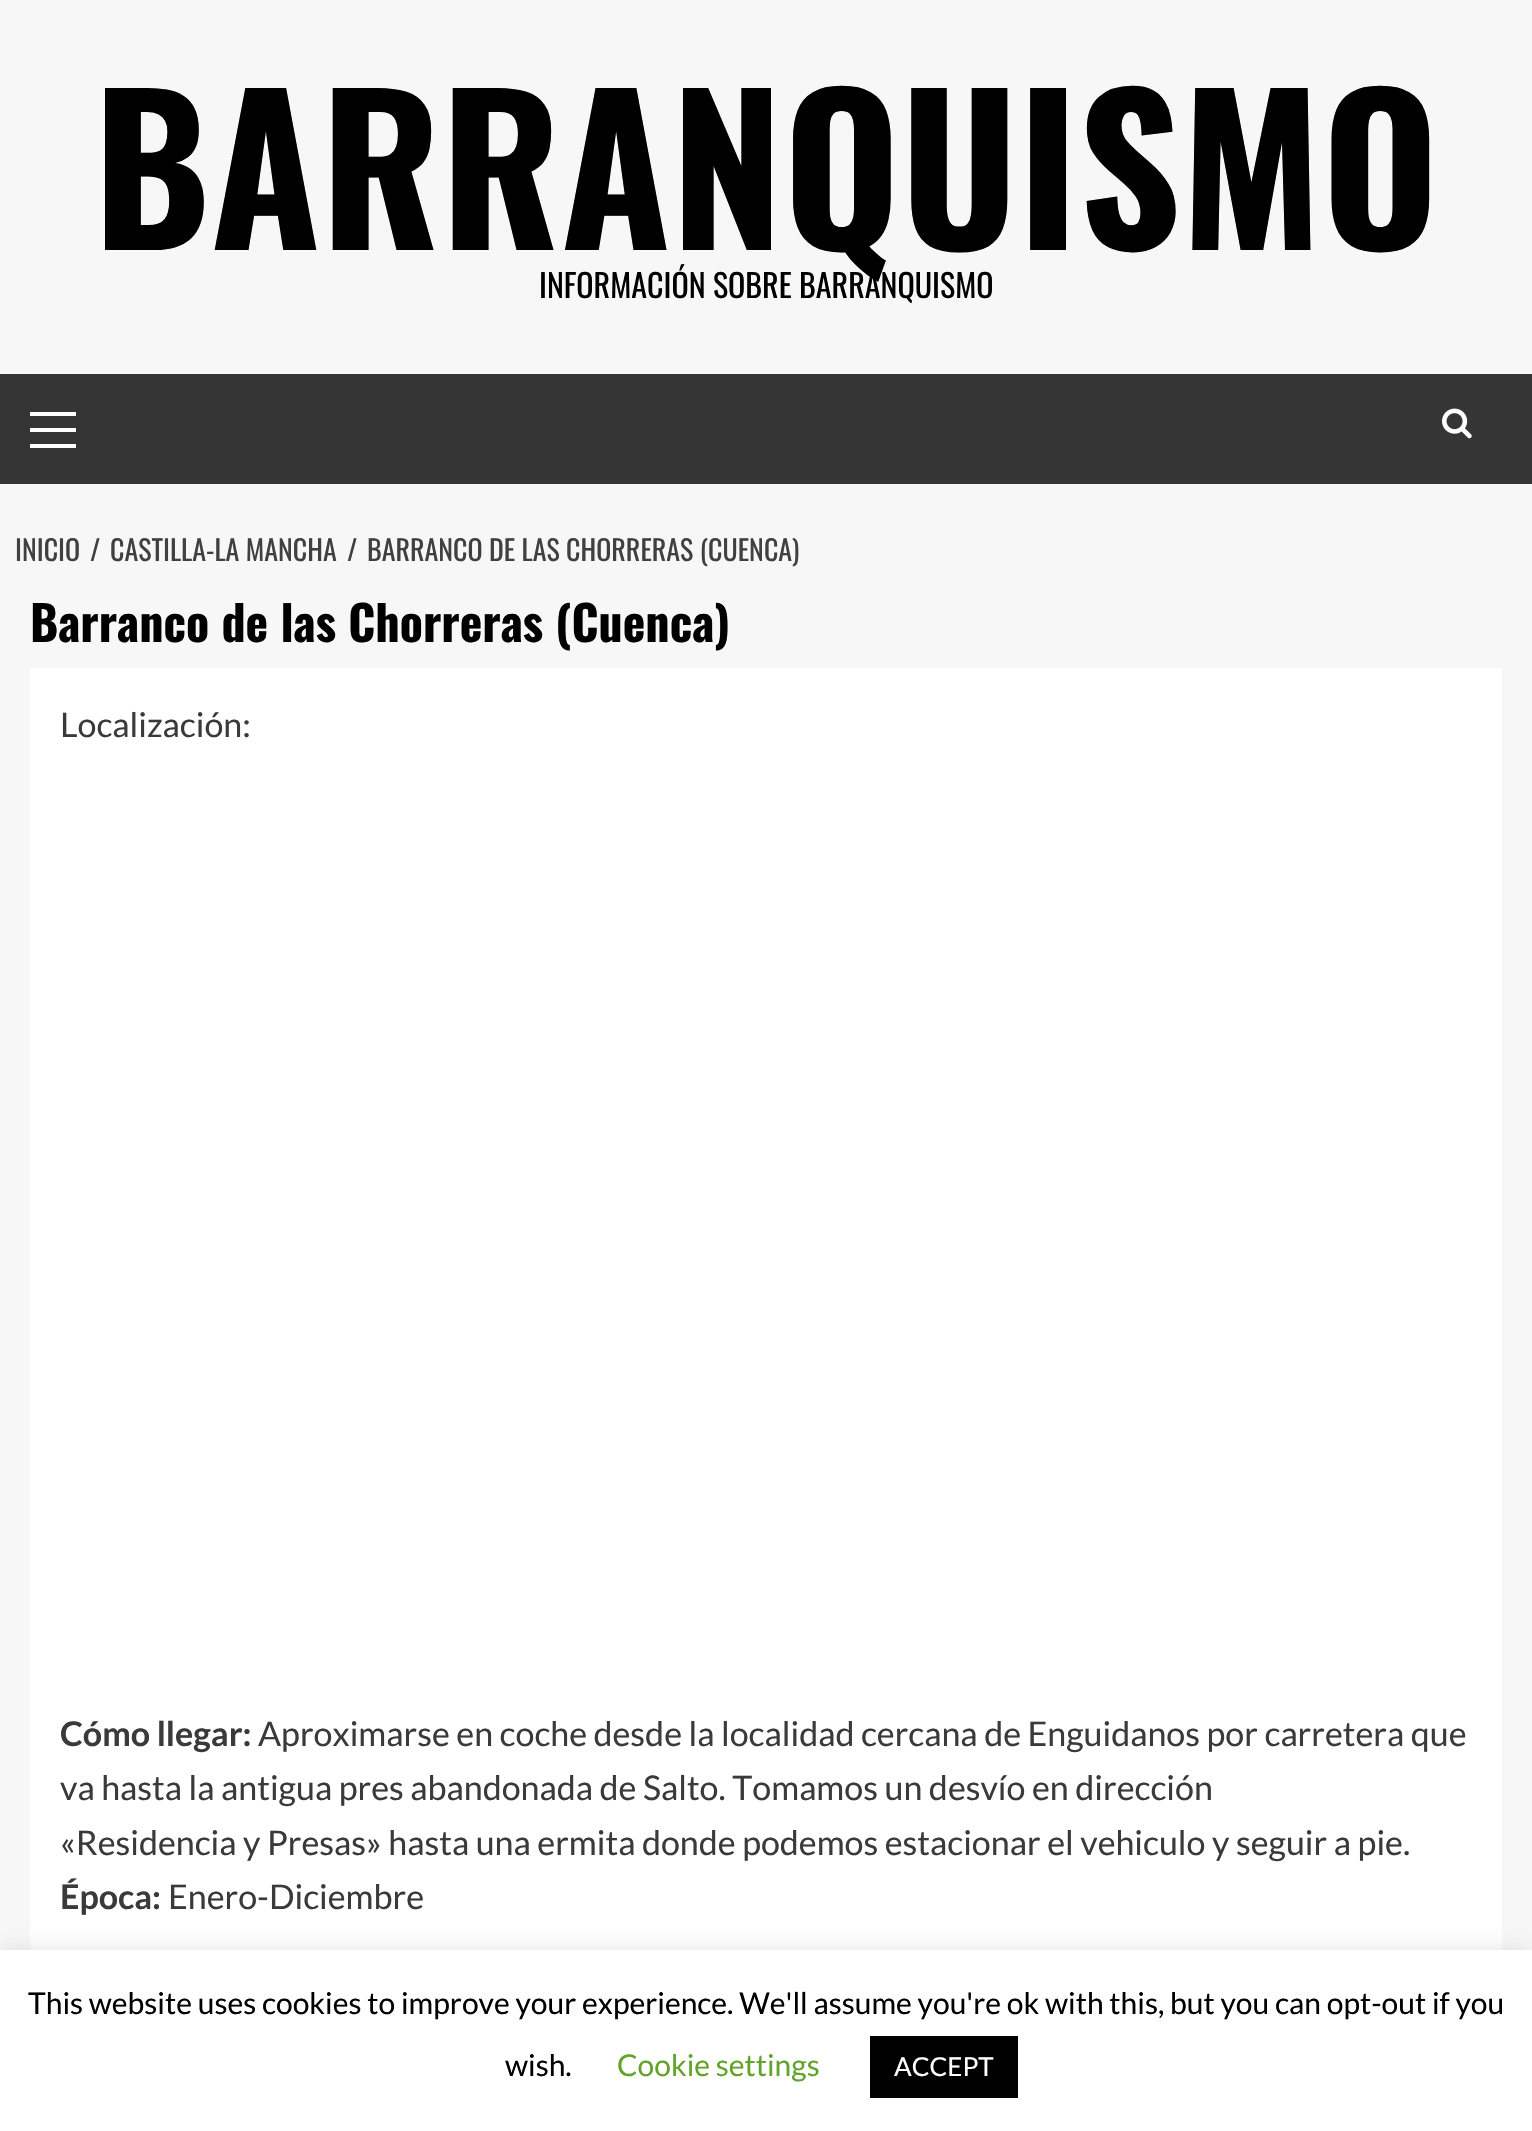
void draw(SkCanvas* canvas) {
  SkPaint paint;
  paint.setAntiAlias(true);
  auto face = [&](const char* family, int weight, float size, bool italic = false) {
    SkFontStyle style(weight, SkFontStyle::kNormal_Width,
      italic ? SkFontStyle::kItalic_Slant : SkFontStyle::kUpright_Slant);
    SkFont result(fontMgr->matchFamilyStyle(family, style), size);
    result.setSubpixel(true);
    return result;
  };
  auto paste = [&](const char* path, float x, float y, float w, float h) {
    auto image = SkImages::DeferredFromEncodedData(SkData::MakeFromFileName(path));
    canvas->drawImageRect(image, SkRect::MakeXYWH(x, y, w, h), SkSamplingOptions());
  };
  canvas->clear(0xfff7f7f7);
  {
    const struct { float x, y, w, h; SkColor color; } items[] = {
      {0, 374, 1532, 110, 0xff353535},
      {30, 428, 46, 4, 0xffffffff},
      {30, 412, 46, 4, 0xffffffff},
      {30, 444, 46, 4, 0xffffffff},
    };
    for (auto [x, y, w, h, color] : items) {
      paint.setColor(color);
      canvas->drawRect(SkRect::MakeXYWH(x, y, w, h), paint);
    }
  }
  paste("img/1.png", 1442, 408, 30, 31);
  canvas->drawRect(SkRect::MakeXYWH(30, 668, 1472, 1282), paint);
  paint.setColor(0x4dacabab);
  paint.setMaskFilter(SkMaskFilter::MakeBlur(kNormal_SkBlurStyle, 10));
  canvas->drawRect(SkRect::MakeXYWH(0, 1948, 1532, 182), paint);
  paint.setMaskFilter(nullptr);
  paint.setColor(0xffffffff);
  canvas->drawRect(SkRect::MakeXYWH(0, 1950, 1532, 181), paint);
  paint.setColor(0xff000000);
  canvas->drawRect(SkRect::MakeXYWH(870, 2036, 148, 62), paint);
  auto f0 = face("Oswald", 700, 200);
  canvas->drawString("BARRANQUISMO", 93, 250, f0, paint);
  auto f1 = face("Oswald", 400, 32);
  canvas->drawString("INFORMACIÓN SOBRE BARRANQUISMO", 539, 298, f1, paint);
  auto f2 = face("Oswald", 400, 28);
  paint.setColor(0xff404040);
  {
    const struct { const char* s; float x, y; } items[] = {
      {"INICIO", 15, 561},
      {"/", 90, 561},
      {"CASTILLA-LA MANCHA", 110, 561},
      {"/", 347, 561},
      {"BARRANCO DE LAS CHORRERAS (CUENCA)", 367, 561},
    };
    for (auto [s, x, y] : items) {
      canvas->drawString(s, x, y, f2, paint);
    }
  }
  auto f3 = face("Oswald", 700, 48);
  paint.setColor(0xff000000);
  canvas->drawString("Barranco de las Chorreras (Cuenca)", 30, 642, f3, paint);
  auto f4 = face("Lato", 400, 34);
  paint.setColor(0xff3a3a3a);
  canvas->drawString("Localización:", 60, 737, f4, paint);
  auto f5 = face("Lato", 700, 34);
  canvas->drawString("Cómo llegar:", 60, 1746, f5, paint);
  {
    const struct { const char* s; float x, y; } items[] = {
      {"Aproximarse en coche desde la localidad cercana de Enguidanos por carretera que", 258, 1746},
      {"va hasta la antigua pres abandonada de Salto. Tomamos un desvío en dirección", 60, 1800},
      {"«Residencia y Presas» hasta una ermita donde podemos estacionar el vehiculo y seguir a pie.", 60, 1855},
    };
    for (auto [s, x, y] : items) {
      canvas->drawString(s, x, y, f4, paint);
    }
  }
  canvas->drawString("Época:", 60, 1909, f5, paint);
  canvas->drawString("Enero-Diciembre", 168, 1909, f4, paint);
  auto f6 = face("Lato", 400, 30);
  paint.setColor(0xff000000);
  canvas->drawString("This website uses cookies to improve your experience. We'll assume you're ok with this, but you can opt-out if you", 28, 2014, f6, paint);
  canvas->drawString("wish.", 505, 2076, f6, paint);
  paint.setColor(0xff62a329);
  canvas->drawString("Cookie settings", 617, 2076, f6, paint);
  auto f7 = face("Lato", 400, 26);
  paint.setColor(0xffffffff);
  canvas->drawString("ACCEPT", 894, 2076, f7, paint);
}
